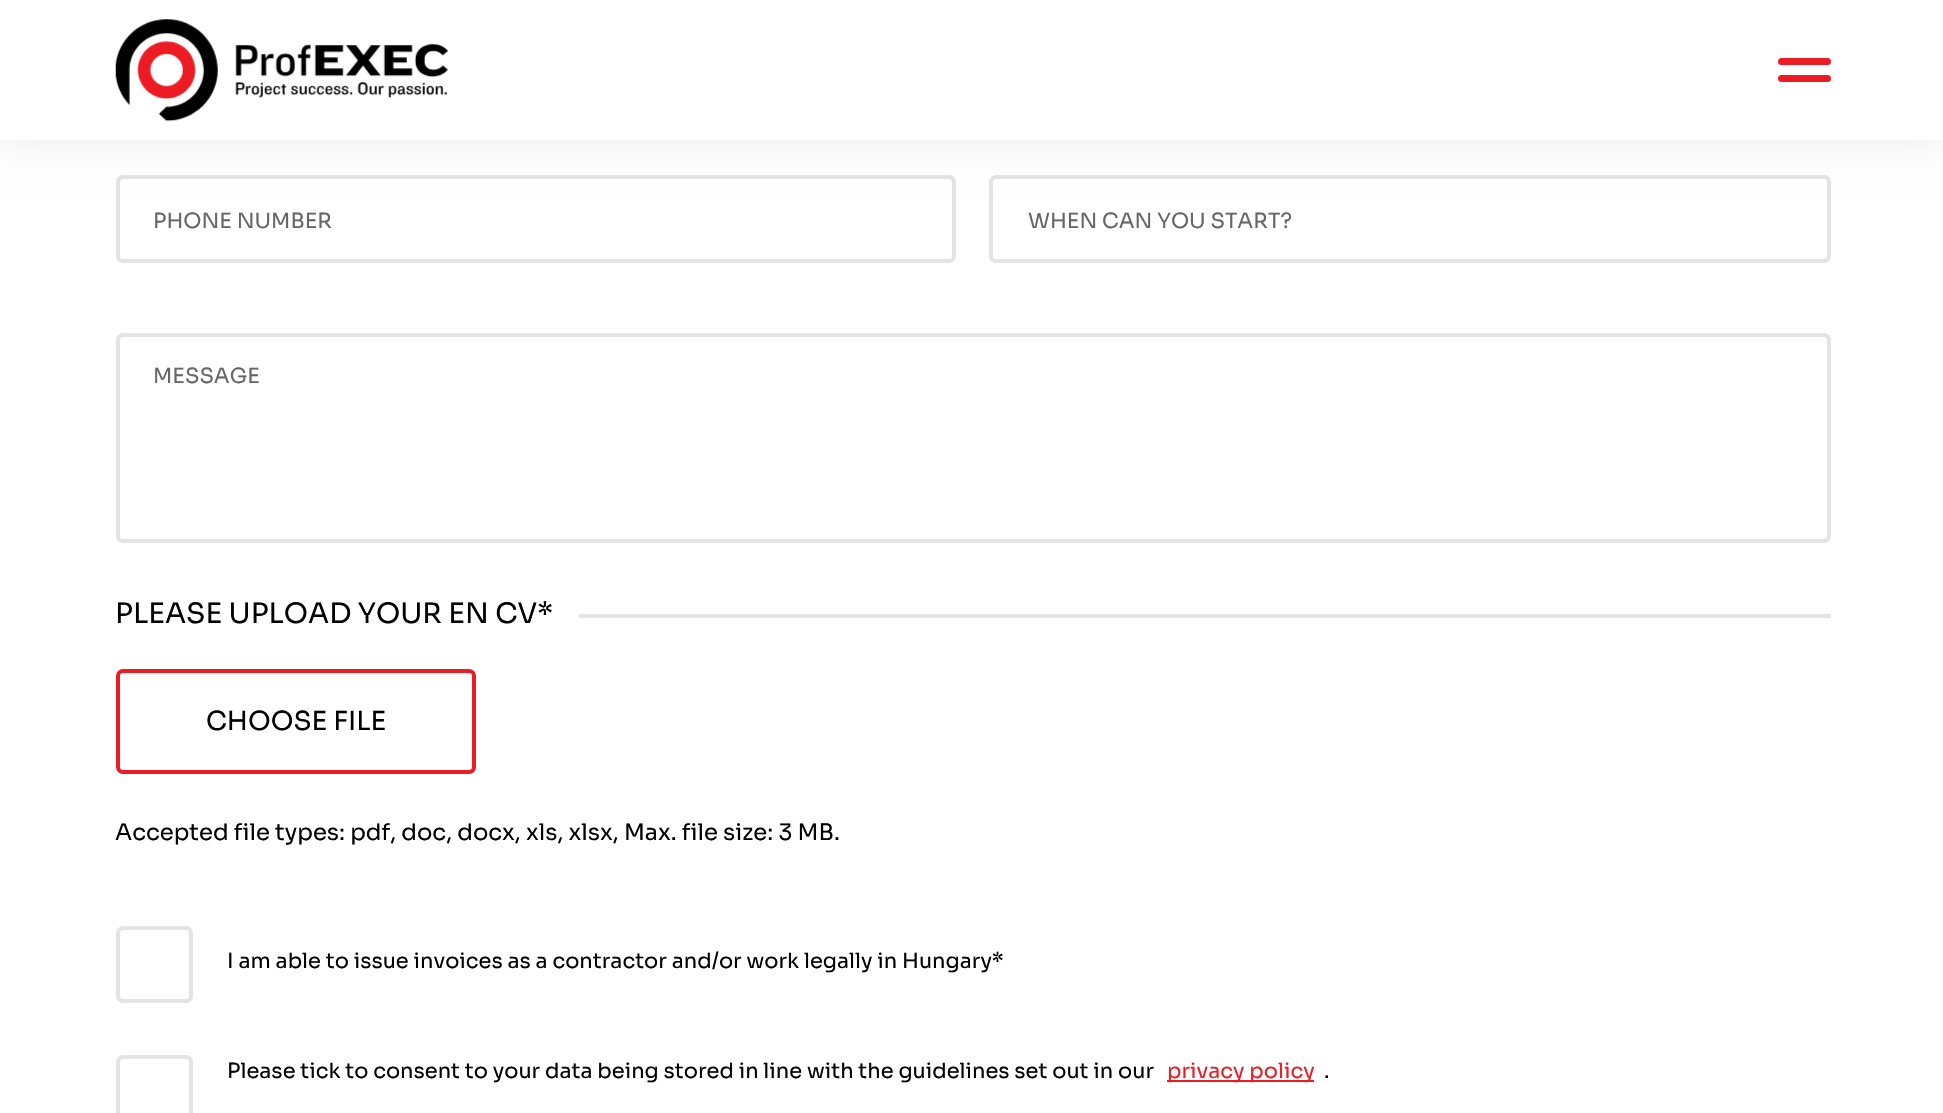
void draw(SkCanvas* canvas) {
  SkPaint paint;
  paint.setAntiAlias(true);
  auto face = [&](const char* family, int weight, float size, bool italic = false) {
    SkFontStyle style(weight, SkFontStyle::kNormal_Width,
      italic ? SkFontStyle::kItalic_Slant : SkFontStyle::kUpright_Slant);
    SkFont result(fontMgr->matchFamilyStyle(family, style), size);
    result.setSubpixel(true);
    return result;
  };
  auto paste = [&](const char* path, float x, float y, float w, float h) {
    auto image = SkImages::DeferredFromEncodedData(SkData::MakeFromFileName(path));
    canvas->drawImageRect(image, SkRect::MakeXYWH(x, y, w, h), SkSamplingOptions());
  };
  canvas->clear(0xffffffff);
  paint.setStroke(true);
  paint.setStrokeWidth(4);
  paint.setColor(0xffe4e4e4);
  canvas->drawRoundRect(SkRect::MakeXYWH(118, 177, 836, 84), 5, 5, paint);
  canvas->drawRoundRect(SkRect::MakeXYWH(991, 177, 838, 84), 5, 5, paint);
  paint.setStroke(false);
  paint.setColor(0x0f000000);
  paint.setMaskFilter(SkMaskFilter::MakeBlur(kNormal_SkBlurStyle, 17.5f));
  canvas->drawRect(SkRect::MakeXYWH(0, 7, 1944, 140), paint);
  paint.setMaskFilter(nullptr);
  paint.setColor(0xffffffff);
  canvas->drawRect(SkRect::MakeXYWH(0, 0, 1943, 140), paint);
  paste("img/1.png", 115, 19, 333, 103);
  paint.setColor(0xffed1c24);
  canvas->drawRoundRect(SkRect::MakeXYWH(1778, 58, 53, 7), 3.5f, 3.5f, paint);
  canvas->drawRoundRect(SkRect::MakeXYWH(1778, 75, 53, 7), 3.5f, 3.5f, paint);
  paint.setStroke(true);
  paint.setColor(0xffe4e4e4);
  canvas->drawRoundRect(SkRect::MakeXYWH(118, 335, 1711, 206), 5, 5, paint);
  paint.setStroke(false);
  canvas->drawRect(SkRect::MakeXYWH(579, 614, 1252, 4), paint);
  paint.setStroke(true);
  paint.setColor(0xffed1c24);
  canvas->drawRoundRect(SkRect::MakeXYWH(118, 671, 356, 101), 5, 5, paint);
  paint.setColor(0xffe4e4e4);
  canvas->drawRoundRect(SkRect::MakeXYWH(118, 928, 73, 73), 5, 5, paint);
  canvas->drawRoundRect(SkRect::MakeXYWH(118, 1057, 73, 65), 5, 5, paint);
  paint.setStroke(false);
  paint.setColor(0xffed1c24);
  canvas->drawRect(SkRect::MakeXYWH(1167, 1080, 147, 2), paint);
  auto f0 = face("Sora", 400, 21);
  paint.setColor(0xff666666);
  {
    const struct { const char* s; float x, y; } items[] = {
      {"PHONE NUMBER", 153, 228},
      {"WHEN CAN YOU START?", 1028, 228},
      {"MESSAGE", 153, 383},
    };
    for (auto [s, x, y] : items) {
      canvas->drawString(s, x, y, f0, paint);
    }
  }
  auto f1 = face("Sora", 400, 28);
  paint.setColor(0xff000000);
  canvas->drawString("PLEASE UPLOAD YOUR EN CV*", 115, 623, f1, paint);
  auto f2 = face("Sora", 400, 26.25f);
  canvas->drawString("CHOOSE FILE", 206, 730, f2, paint);
  auto f3 = face("Sora", 400, 22.75f);
  canvas->drawString("Accepted file types: pdf, doc, docx, xls, xlsx, Max. file size: 3 MB.", 115, 840, f3, paint);
  canvas->drawString("I am able to issue invoices as a contractor and/or work legally in Hungary*", 227, 968, f0, paint);
  canvas->drawString("Please tick to consent to your data being stored in line with the guidelines set out in our", 227, 1078, f0, paint);
  paint.setColor(0xffed1c24);
  canvas->drawString("privacy policy", 1167, 1078, f0, paint);
  paint.setColor(0xff000000);
  canvas->drawString(".", 1324, 1078, f0, paint);
}
